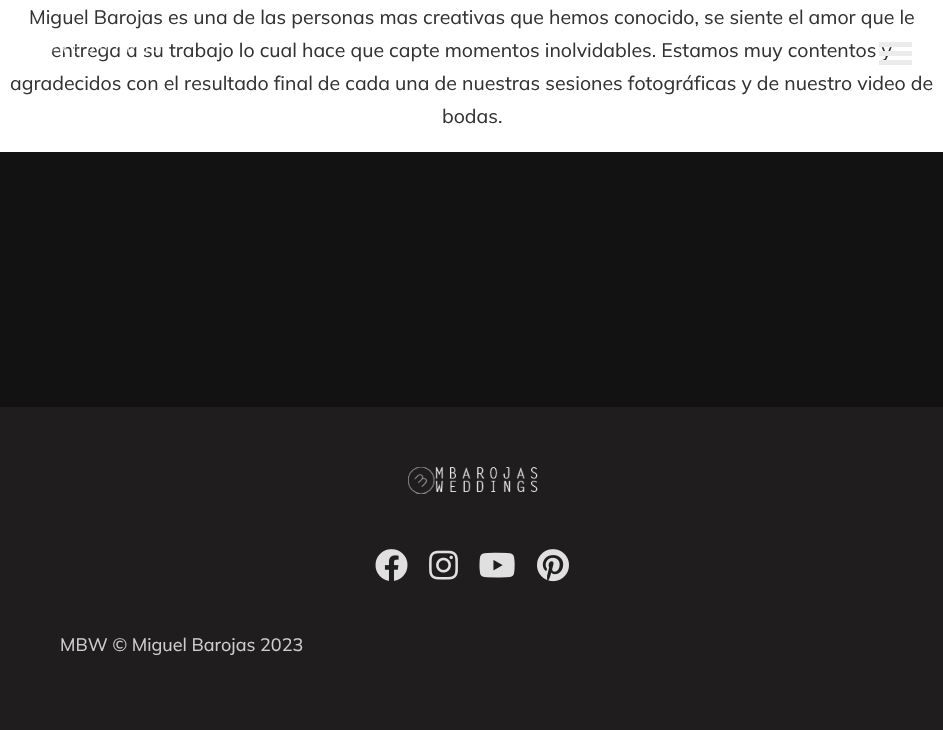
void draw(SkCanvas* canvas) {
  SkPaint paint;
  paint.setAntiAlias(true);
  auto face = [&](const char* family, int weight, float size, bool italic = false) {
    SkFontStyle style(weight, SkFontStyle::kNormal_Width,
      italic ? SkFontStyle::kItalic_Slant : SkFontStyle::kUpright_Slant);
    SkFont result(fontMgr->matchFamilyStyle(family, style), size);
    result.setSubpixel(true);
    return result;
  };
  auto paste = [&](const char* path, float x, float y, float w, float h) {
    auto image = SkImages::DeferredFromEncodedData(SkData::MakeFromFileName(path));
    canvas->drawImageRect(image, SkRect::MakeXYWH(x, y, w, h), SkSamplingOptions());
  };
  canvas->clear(0xffffffff);
  paint.setColor(0xff121212);
  canvas->drawRect(SkRect::MakeXYWH(0, 152, 943, 255), paint);
  paint.setColor(0xff1f1d1d);
  canvas->drawRect(SkRect::MakeXYWH(0, 407, 943, 323), paint);
  paste("img/2.png", 408, 467, 130, 27);
  paste("img/3.png", 375, 549, 33, 32);
  paste("img/4.png", 429, 550, 29, 30);
  paste("img/5.png", 479, 552, 36, 26);
  paste("img/6.png", 537, 549, 32, 33);
  auto f0 = face("Mulish", 400, 19.5f);
  paint.setColor(0xff333333);
  {
    const struct { const char* s; float x, y; } items[] = {
      {"Miguel Barojas es una de las personas mas creativas que hemos conocido, se siente el amor que le", 29, 24},
      {"entrega a su trabajo lo cual hace que capte momentos inolvidables. Estamos muy contentos y", 51, 57},
      {"agradecidos con el resultado final de cada una de nuestras sesiones fotográficas y de nuestro video de", 10, 90},
      {"bodas.", 442, 123},
    };
    for (auto [s, x, y] : items) {
      canvas->drawString(s, x, y, f0, paint);
    }
  }
  paste("img/1.png", 52, 46, 110, 7);
  {
    const struct { float x, y, w, h; SkColor color; } items[] = {
      {879, 42, 33, 5, 0xffebebeb},
      {879, 51, 33, 5, 0xffebebeb},
      {879, 60, 33, 5, 0xffebebeb},
    };
    for (auto [x, y, w, h, color] : items) {
      paint.setColor(color);
      canvas->drawRect(SkRect::MakeXYWH(x, y, w, h), paint);
    }
  }
  auto f1 = face("Mulish", 400, 18);
  paint.setColor(0xffcecece);
  canvas->drawString("MBW © Miguel Barojas 2023", 60, 651, f1, paint);
}
